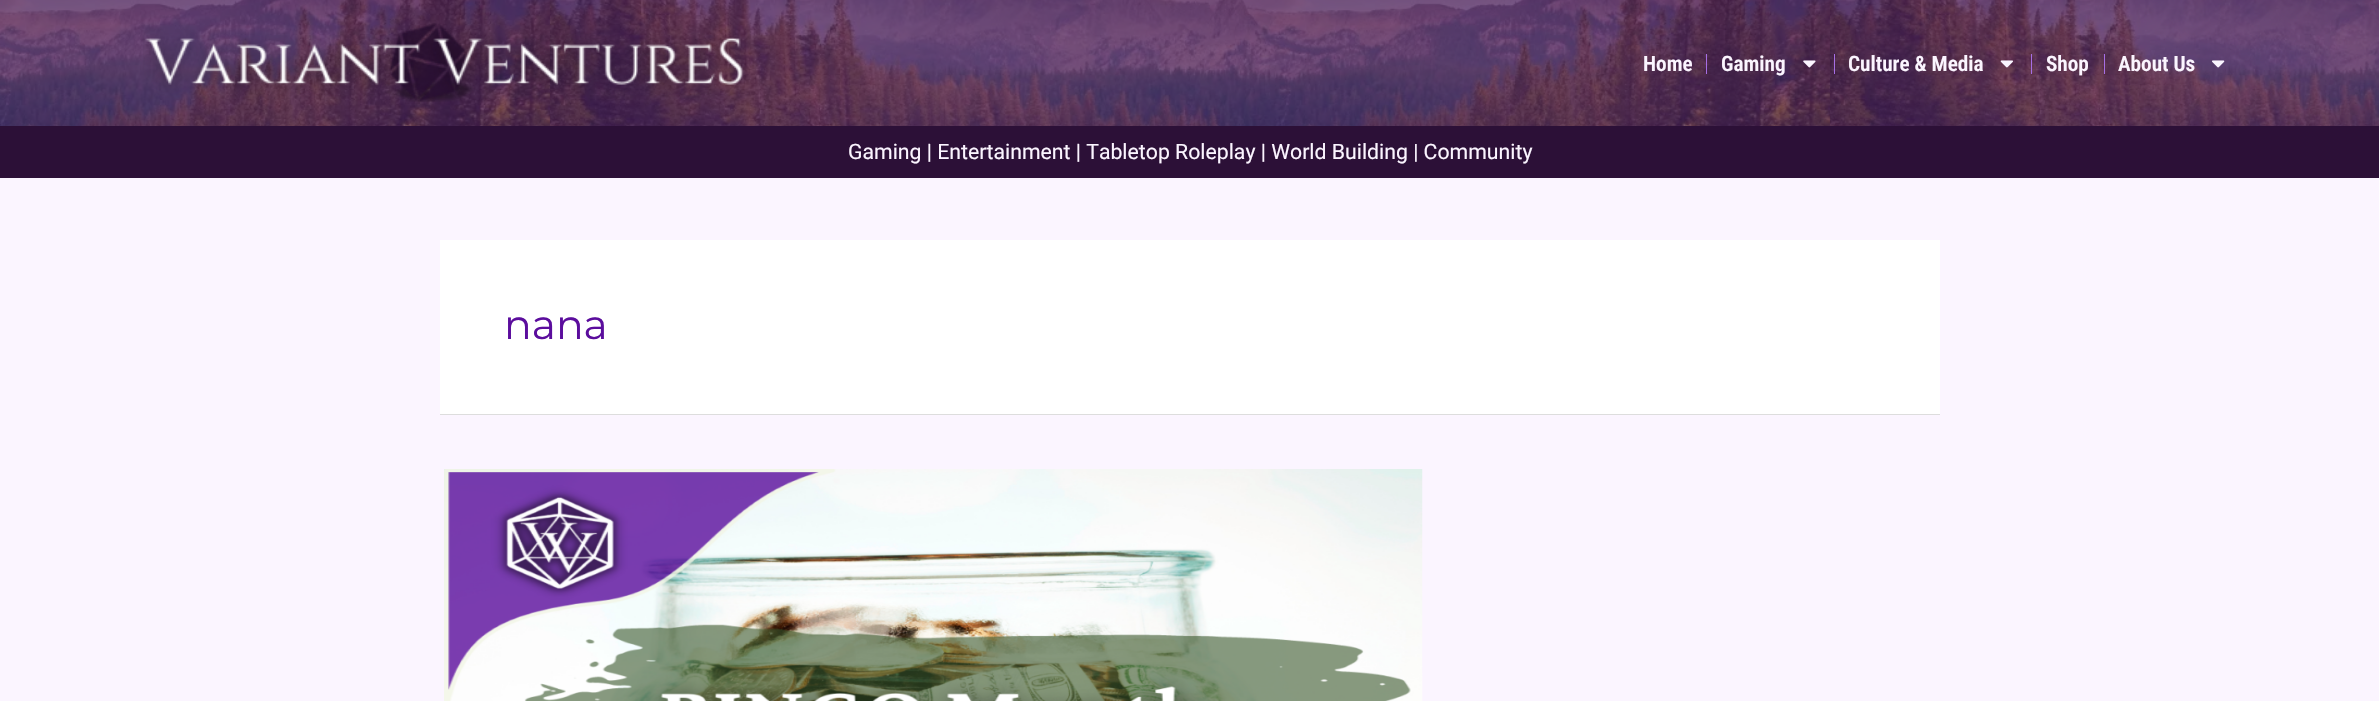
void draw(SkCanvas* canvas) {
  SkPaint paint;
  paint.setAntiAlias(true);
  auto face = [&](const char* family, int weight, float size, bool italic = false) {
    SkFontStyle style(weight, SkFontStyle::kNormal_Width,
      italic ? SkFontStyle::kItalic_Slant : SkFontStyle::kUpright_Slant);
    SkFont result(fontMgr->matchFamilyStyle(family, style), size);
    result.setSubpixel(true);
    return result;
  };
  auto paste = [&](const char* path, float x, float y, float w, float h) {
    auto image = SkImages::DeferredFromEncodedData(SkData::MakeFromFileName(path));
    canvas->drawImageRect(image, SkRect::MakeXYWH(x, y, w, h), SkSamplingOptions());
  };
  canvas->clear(0xfffbf5ff);
  paint.setColor(0xff4a1b5d);
  canvas->drawRect(SkRect::MakeXYWH(0, 0, 2379, 126), paint);
  paste("img/1.png", 0, 0, 2379, 126);
  paste("img/2.png", 143, 23, 607, 79);
  paint.setColor(0xffa66ee4);
  canvas->drawRect(SkRect::MakeXYWH(1706, 54, 1, 20), paint);
  paste("img/3.png", 1803, 60, 13, 8);
  canvas->drawRect(SkRect::MakeXYWH(1834, 54, 1, 20), paint);
  paste("img/4.png", 2000, 60, 13, 8);
  canvas->drawRect(SkRect::MakeXYWH(2031, 54, 1, 20), paint);
  canvas->drawRect(SkRect::MakeXYWH(2104, 54, 1, 20), paint);
  paste("img/5.png", 2212, 60, 13, 8);
  {
    const struct { float x, y, w, h; SkColor color; } items[] = {
      {0, 126, 2379, 52, 0xff2c1037},
      {440, 240, 1500, 174, 0xffffffff},
      {440, 414, 1500, 1, 0xffdddddd},
    };
    for (auto [x, y, w, h, color] : items) {
      paint.setColor(color);
      canvas->drawRect(SkRect::MakeXYWH(x, y, w, h), paint);
    }
  }
  paste("img/6.png", 444, 469, 979, 232);
  auto f0 = face("Roboto Condensed", 600, 21.25f);
  paint.setColor(0xfffbf5ff);
  {
    const struct { const char* s; float x, y; } items[] = {
      {"Home", 1643, 71},
      {"Gaming", 1721, 71},
      {"Culture & Media", 1848, 71},
      {"Shop", 2046, 71},
      {"About Us", 2118, 71},
    };
    for (auto [s, x, y] : items) {
      canvas->drawString(s, x, y, f0, paint);
    }
  }
  auto f1 = face("Roboto", 400, 21.25f);
  canvas->drawString("Gaming | Entertainment | Tabletop Roleplay | World Building | Community", 848, 159, f1, paint);
  auto f2 = face("Montserrat", 400, 41);
  paint.setColor(0xff5b0d9d);
  canvas->drawString("nana", 504, 339, f2, paint);
}
